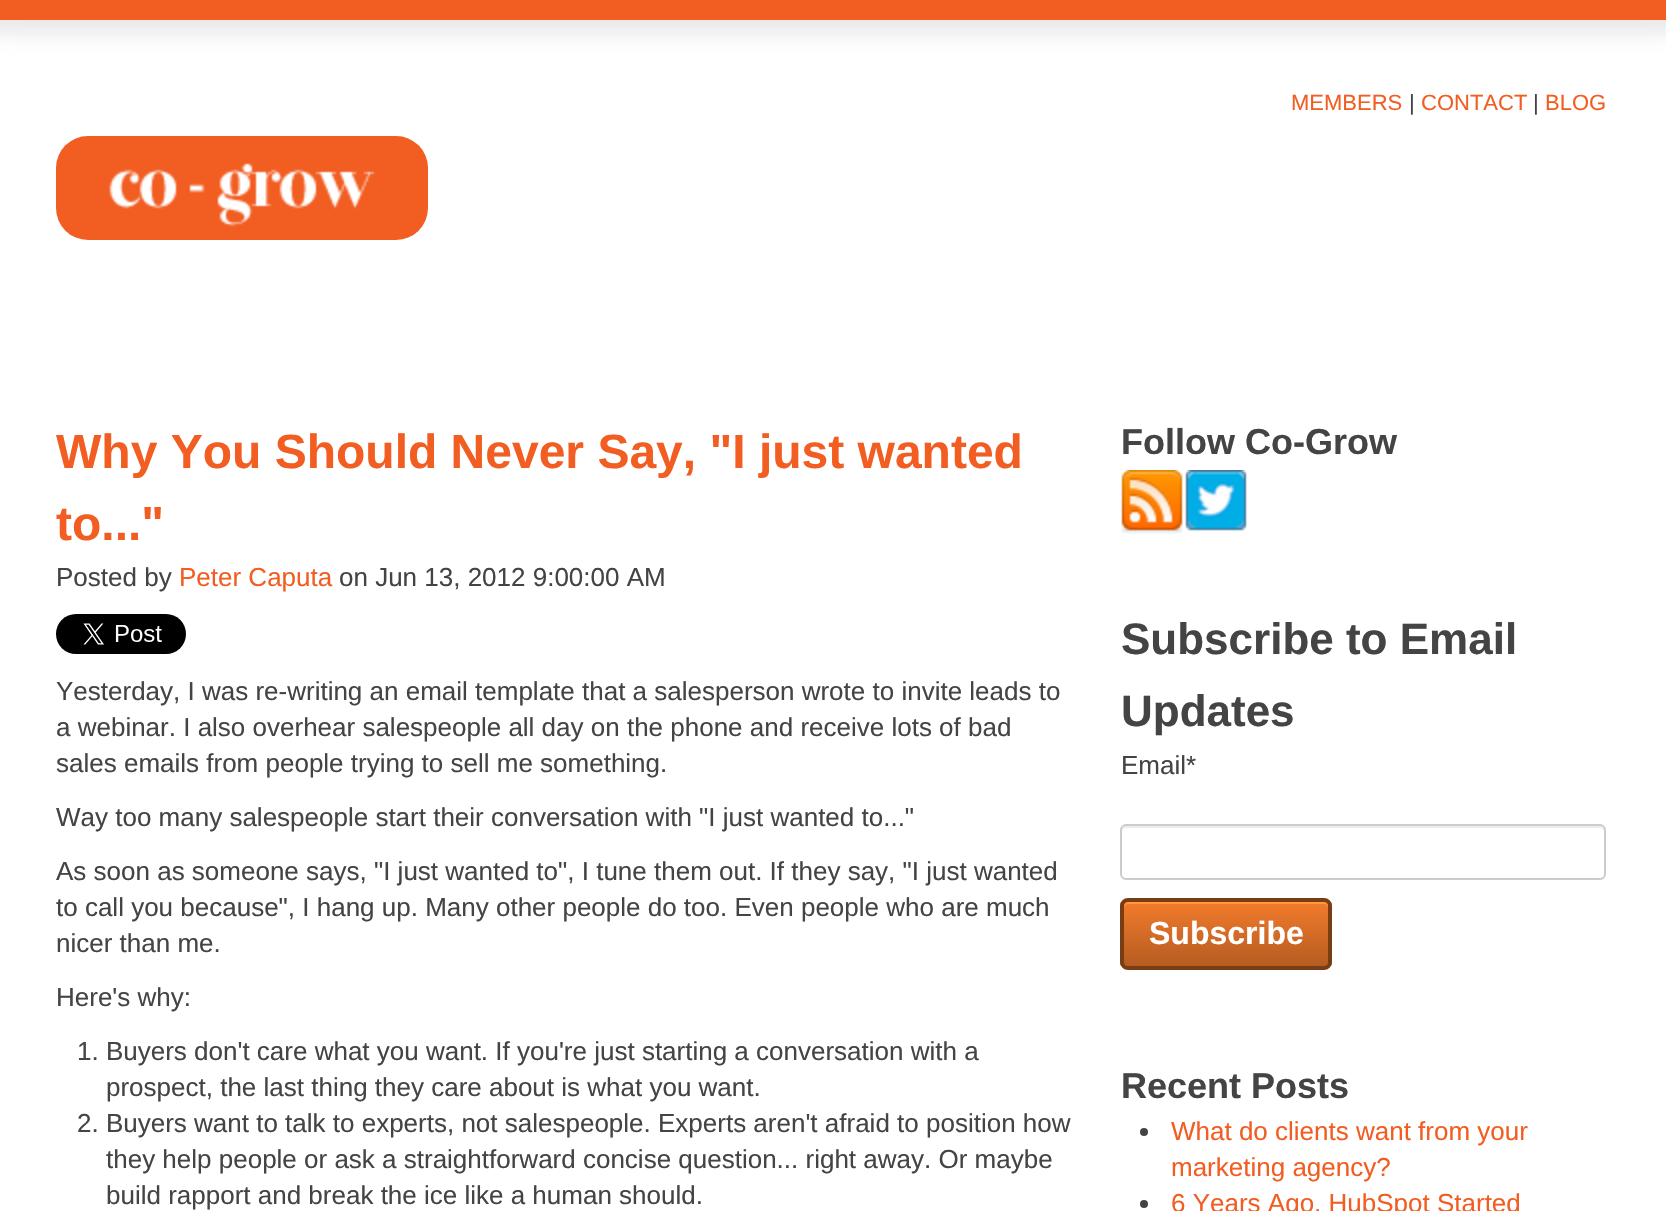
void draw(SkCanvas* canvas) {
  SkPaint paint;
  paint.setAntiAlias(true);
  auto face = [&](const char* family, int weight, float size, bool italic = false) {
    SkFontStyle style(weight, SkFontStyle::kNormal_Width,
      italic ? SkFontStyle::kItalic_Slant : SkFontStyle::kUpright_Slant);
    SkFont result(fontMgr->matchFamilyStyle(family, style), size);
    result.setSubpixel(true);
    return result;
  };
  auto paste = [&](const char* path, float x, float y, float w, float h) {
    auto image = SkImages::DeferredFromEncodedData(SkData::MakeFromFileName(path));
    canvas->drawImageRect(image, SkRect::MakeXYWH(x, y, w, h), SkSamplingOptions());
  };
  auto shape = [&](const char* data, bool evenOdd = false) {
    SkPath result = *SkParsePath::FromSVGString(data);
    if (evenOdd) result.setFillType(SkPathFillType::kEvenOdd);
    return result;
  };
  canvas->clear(0xffffffff);
  paint.setColor(0x4db3b3b3);
  paint.setMaskFilter(SkMaskFilter::MakeBlur(kNormal_SkBlurStyle, 10));
  canvas->drawRoundRect(SkRect::MakeXYWH(-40, -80, 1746, 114), 50, 50, paint);
  paint.setMaskFilter(nullptr);
  paint.setColor(0xfff25d22);
  canvas->drawRect(SkRect::MakeXYWH(0, 0, 1666, 20), paint);
  paste("img/1.png", 56, 136, 372, 104);
  paste("img/2.png", 56, 614, 130, 40);
  paste("img/3.png", 1121, 470, 62, 64);
  paste("img/4.png", 1185, 470, 62, 61);
  paint.setColor(0xffececec);
  canvas->drawPath(shape("M1126 828H1600C1602 828 1604 830 1604 832V830C1604 828 1602 826 1600 826H1126C1124 826 1122 828 1122 830V832C1122 830 1124 828 1126 828Z"), paint);
  paint.setStroke(true);
  paint.setStrokeWidth(2);
  paint.setColor(0xffcccccc);
  canvas->drawRoundRect(SkRect::MakeXYWH(1121, 825, 484, 54), 5, 5, paint);
  canvas->save();
  canvas->clipPath(shape("M1128 898H1324C1328.5 898 1332 901.5 1332 906V962C1332 966.5 1328.5 970 1324 970H1128C1123.5 970 1120 966.5 1120 962V906C1120 901.5 1123.5 898 1128 898Z"), true);
  paint.setStroke(false);
  {
    const SkColor colors[] = {0xfff27b2c, 0xffb55c21};
    const float stops[] = {0, 1};
    const SkPoint ends[] = {{1226, 902}, {1226, 966}};
    paint.setShader(SkGradientShader::MakeLinear(ends, colors, stops, 2, SkTileMode::kClamp));
    paint.setAlpha(255);
  }
  canvas->drawRect(SkRect::MakeXYWH(1120, 902, 212, 64), paint);
  canvas->restore();
  paint.setShader(nullptr);
  paint.setColor(0xffff9937);
  canvas->drawPath(shape("M1128 904H1324C1326 904 1328 906 1328 908V906C1328 904 1326 902 1324 902H1128C1126 902 1124 904 1124 906V908C1124 906 1126 904 1128 904Z"), paint);
  paint.setStroke(true);
  paint.setStrokeWidth(4);
  paint.setColor(0xff793d16);
  canvas->drawRoundRect(SkRect::MakeXYWH(1122, 900, 208, 68), 6, 6, paint);
  paint.setStroke(false);
  paint.setColor(0xff444444);
  canvas->drawCircle(1144, 1132, 4, paint);
  canvas->drawCircle(1144, 1204, 4, paint);
  auto f0 = face("Liberation Sans", 400, 22);
  paint.setColor(0xfff25d22);
  canvas->drawString("MEMBERS", 1291, 110, f0, paint);
  paint.setColor(0xff444444);
  canvas->drawString("|", 1409, 110, f0, paint);
  paint.setColor(0xfff25d22);
  canvas->drawString("CONTACT", 1421, 110, f0, paint);
  paint.setColor(0xff444444);
  canvas->drawString("|", 1533, 110, f0, paint);
  paint.setColor(0xfff25d22);
  canvas->drawString("BLOG", 1545, 110, f0, paint);
  auto f1 = face("Liberation Sans", 700, 48);
  canvas->drawString("Why You Should Never Say, \"I just wanted", 56, 468, f1, paint);
  canvas->drawString("to...\"", 56, 540, f1, paint);
  auto f2 = face("Liberation Sans", 400, 26);
  paint.setColor(0xff444444);
  canvas->drawString("Posted by", 56, 586, f2, paint);
  paint.setColor(0xfff25d22);
  canvas->drawString("Peter Caputa", 179, 586, f2, paint);
  paint.setColor(0xff444444);
  {
    const struct { const char* s; float x, y; } items[] = {
      {"on Jun 13, 2012 9:00:00 AM", 339, 586},
      {"Yesterday, I was re-writing an email template that a salesperson wrote to invite leads to", 56, 700},
      {"a webinar. I also overhear salespeople all day on the phone and receive lots of bad", 56, 736},
      {"sales emails from people trying to sell me something.", 56, 772},
      {"Way too many salespeople start their conversation with \"I just wanted to...\"", 56, 826},
      {"As soon as someone says, \"I just wanted to\", I tune them out. If they say, \"I just wanted", 56, 880},
      {"to call you because\", I hang up. Many other people do too. Even people who are much", 56, 916},
      {"nicer than me.", 56, 952},
      {"Here's why:", 56, 1006},
      {"1. Buyers don't care what you want. If you're just starting a conversation with a", 77, 1060},
      {"prospect, the last thing they care about is what you want.", 106, 1096},
      {"2. Buyers want to talk to experts, not salespeople. Experts aren't afraid to position how", 77, 1132},
      {"they help people or ask a straightforward concise question... right away. Or maybe", 106, 1168},
      {"build rapport and break the ice like a human should.", 106, 1204},
    };
    for (auto [s, x, y] : items) {
      canvas->drawString(s, x, y, f2, paint);
    }
  }
  auto f3 = face("Liberation Sans", 700, 36);
  canvas->drawString("Follow Co-Grow", 1121, 454, f3, paint);
  auto f4 = face("Liberation Sans", 700, 44);
  canvas->drawString("Subscribe to Email", 1121, 654, f4, paint);
  canvas->drawString("Updates", 1121, 726, f4, paint);
  canvas->drawString("Email*", 1121, 774, f2, paint);
  auto f5 = face("Liberation Sans", 700, 32);
  paint.setColor(0xffffffff);
  canvas->drawString("Subscribe", 1149, 944, f5, paint);
  paint.setColor(0xff444444);
  canvas->drawString("Recent Posts", 1121, 1098, f3, paint);
  paint.setColor(0xfff25d22);
  {
    const struct { const char* s; float x, y; } items[] = {
      {"What do clients want from your", 1171, 1140},
      {"marketing agency?", 1171, 1176},
      {"6 Years Ago, HubSpot Started", 1171, 1212},
    };
    for (auto [s, x, y] : items) {
      canvas->drawString(s, x, y, f2, paint);
    }
  }
}
